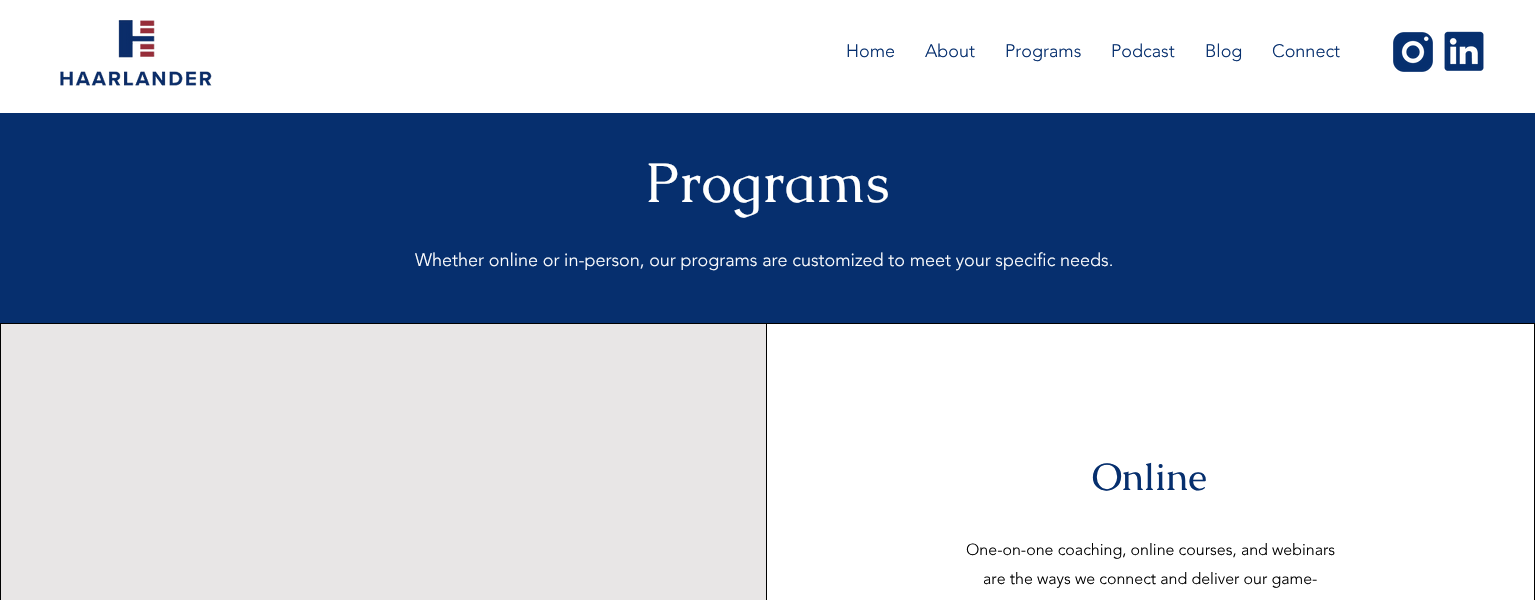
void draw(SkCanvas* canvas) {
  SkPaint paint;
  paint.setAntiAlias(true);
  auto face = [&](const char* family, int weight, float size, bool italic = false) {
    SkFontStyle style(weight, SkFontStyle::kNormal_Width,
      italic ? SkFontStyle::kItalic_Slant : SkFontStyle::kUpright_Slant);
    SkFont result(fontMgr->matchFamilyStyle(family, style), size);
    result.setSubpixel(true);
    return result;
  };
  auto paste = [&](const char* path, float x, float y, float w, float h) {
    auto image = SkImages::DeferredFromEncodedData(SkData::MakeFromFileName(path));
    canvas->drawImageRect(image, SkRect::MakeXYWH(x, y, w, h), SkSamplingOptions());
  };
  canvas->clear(0xffffffff);
  paste("img/1.png", 60, 20, 152, 66);
  paste("img/2.png", 1393, 32, 40, 40);
  paste("img/3.png", 1444, 31, 40, 40);
  {
    const struct { float x, y, w, h; SkColor color; } items[] = {
      {0, 113, 1535, 210, 0xff062f6e},
      {0, 323, 1535, 277, 0xff000000},
      {1, 324, 765, 276, 0xffe8e6e6},
      {767, 324, 767, 276, 0xffffffff},
    };
    for (auto [x, y, w, h, color] : items) {
      paint.setColor(color);
      canvas->drawRect(SkRect::MakeXYWH(x, y, w, h), paint);
    }
  }
  auto f0 = face("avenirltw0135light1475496", 300, 18);
  paint.setColor(0xff062f6e);
  {
    const struct { const char* s; float x, y; } items[] = {
      {"Home", 846, 57},
      {"About", 925, 57},
      {"Programs", 1005, 57},
      {"Podcast", 1111, 57},
      {"Blog", 1205, 57},
      {"Connect", 1272, 57},
    };
    for (auto [s, x, y] : items) {
      canvas->drawString(s, x, y, f0, paint);
    }
  }
  auto f1 = face("Caudex", 400, 56);
  paint.setColor(0xffffffff);
  canvas->drawString("Programs", 645, 202, f1, paint);
  canvas->drawString("Whether online or in-person, our programs are customized to meet your specific needs.", 415, 266, f0, paint);
  auto f2 = face("Caudex", 400, 38);
  paint.setColor(0xff062f6e);
  canvas->drawString("Online", 1092, 490, f2, paint);
  auto f3 = face("avenirltw0135light1475496", 300, 16);
  paint.setColor(0xff000000);
  canvas->drawString("One-on-one coaching, online courses, and webinars", 966, 555, f3, paint);
  canvas->drawString("are the ways we connect and deliver our game-", 983, 584, f3, paint);
}
